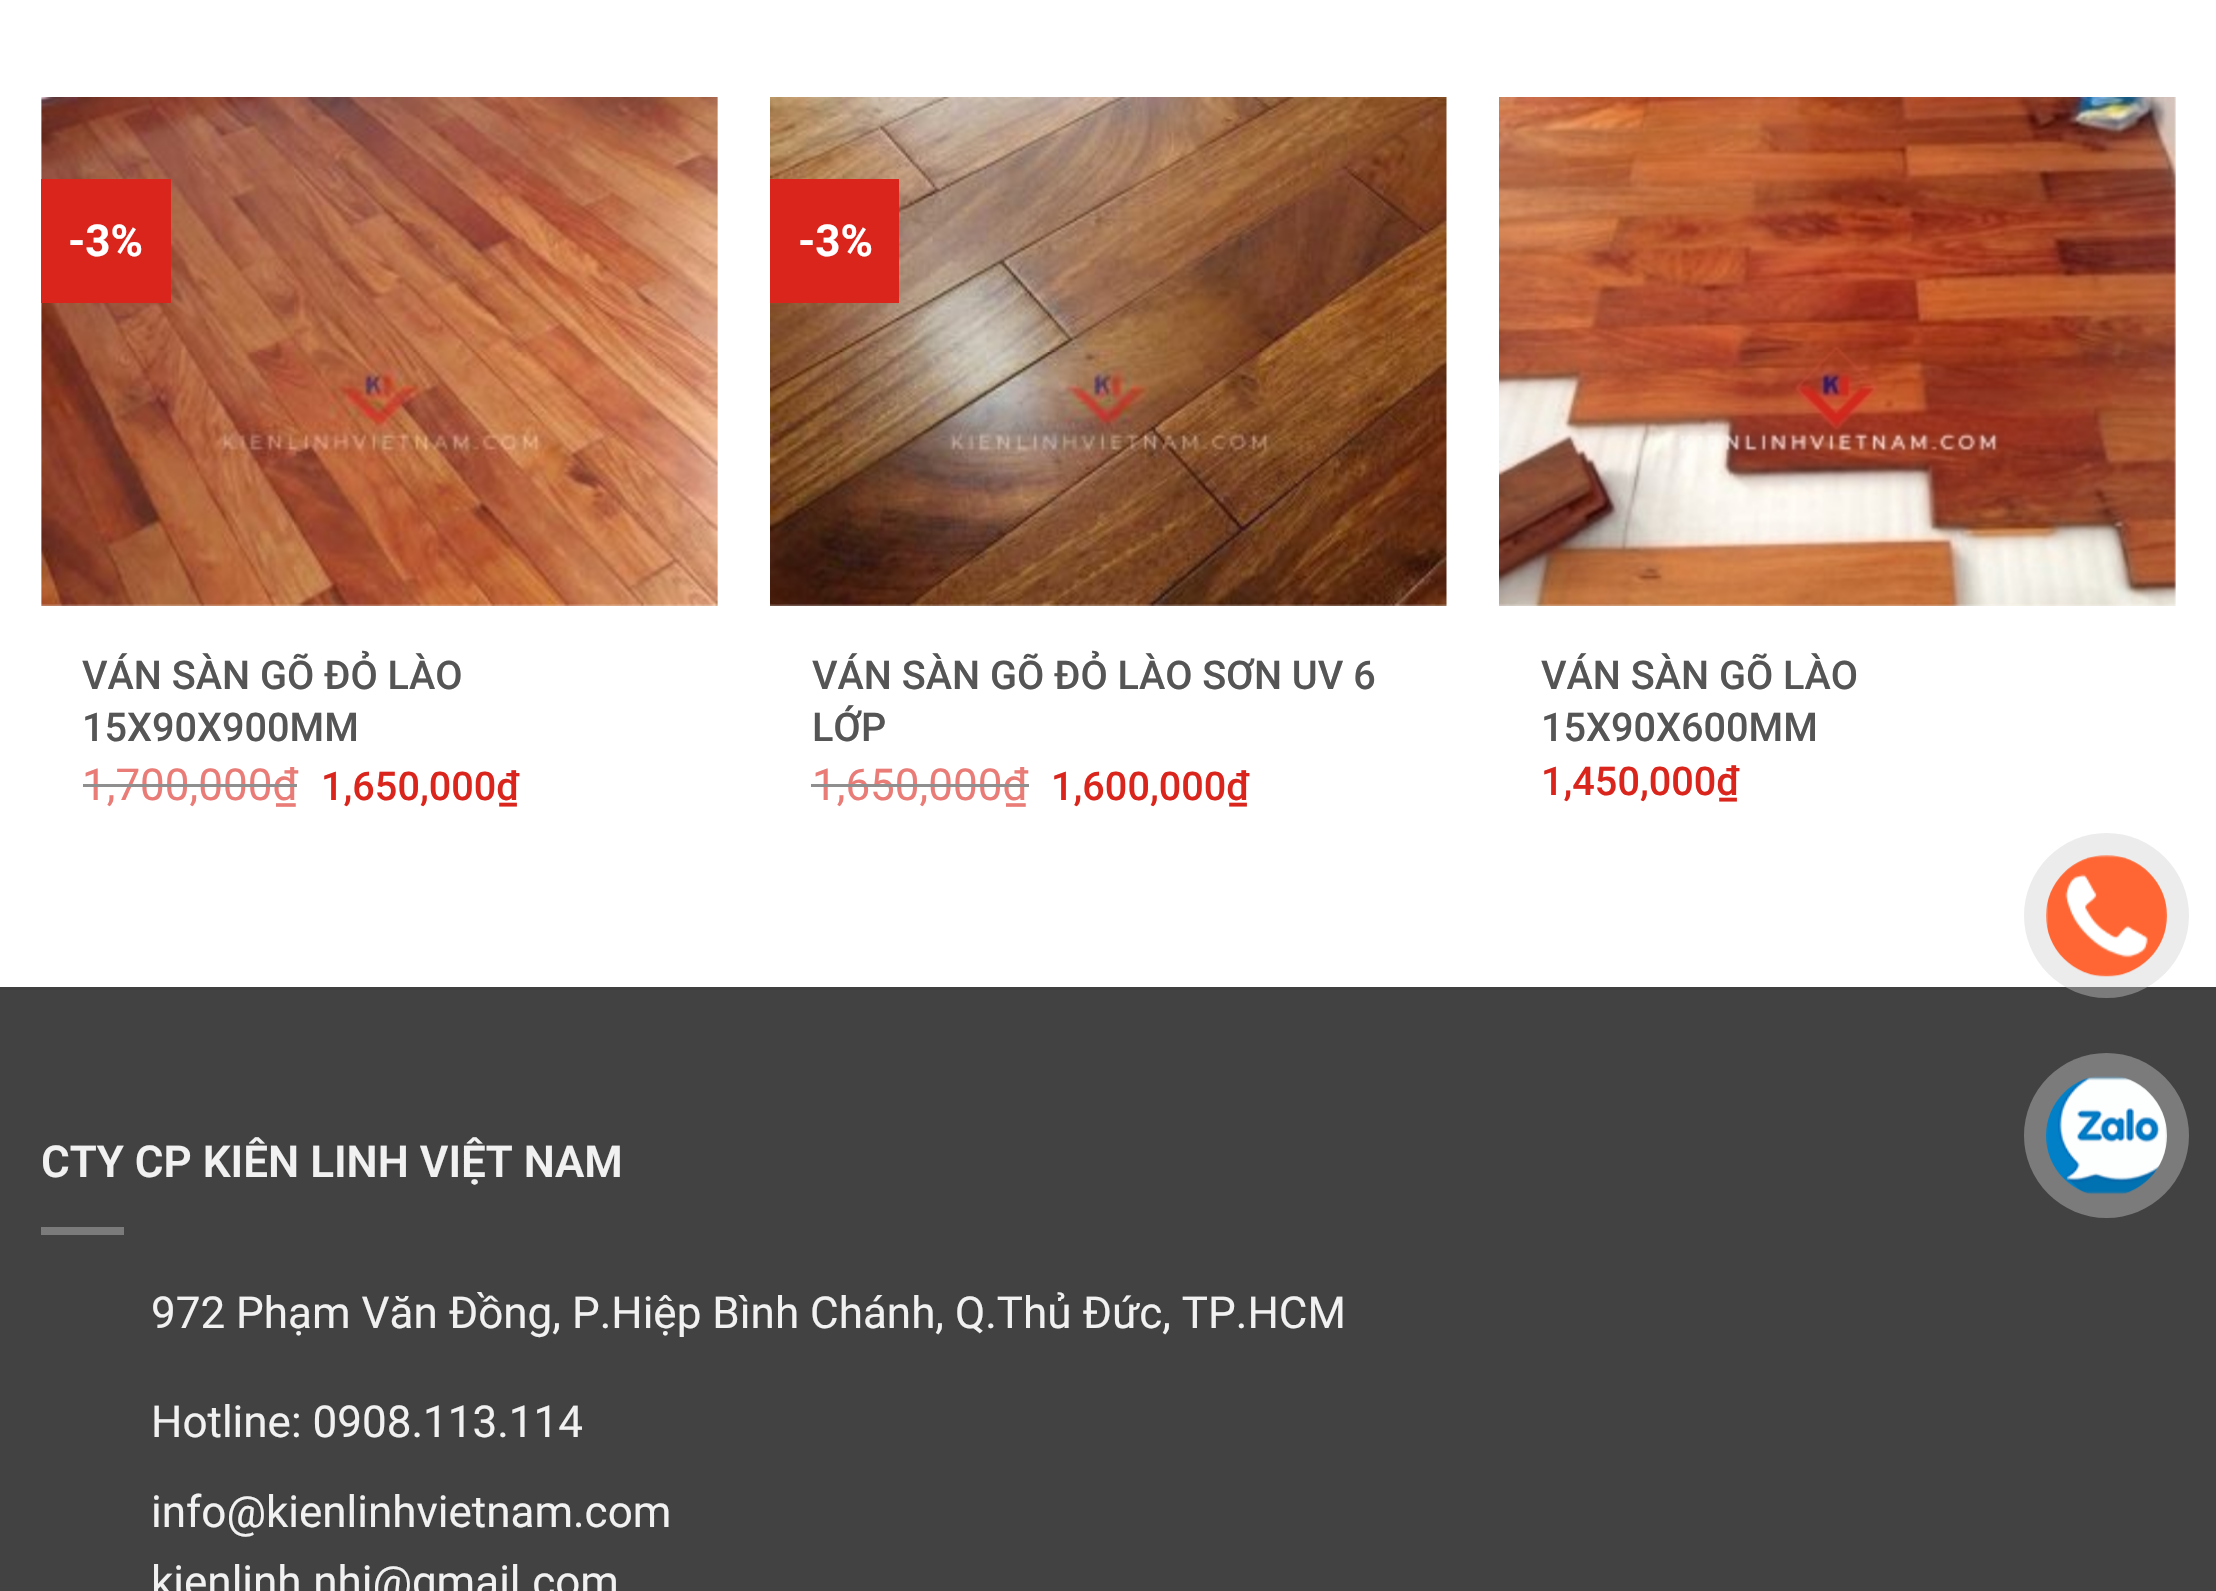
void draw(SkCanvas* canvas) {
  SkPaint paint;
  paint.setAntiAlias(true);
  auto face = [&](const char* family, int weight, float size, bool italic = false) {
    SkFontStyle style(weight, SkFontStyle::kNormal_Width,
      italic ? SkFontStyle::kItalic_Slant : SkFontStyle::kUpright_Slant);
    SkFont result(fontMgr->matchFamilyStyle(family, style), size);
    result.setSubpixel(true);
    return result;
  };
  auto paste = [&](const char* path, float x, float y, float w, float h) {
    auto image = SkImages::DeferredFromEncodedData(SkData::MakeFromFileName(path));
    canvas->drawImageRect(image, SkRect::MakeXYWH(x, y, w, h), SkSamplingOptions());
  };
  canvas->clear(0xffffffff);
  paste("img/1.png", 41, 97, 677, 509);
  paint.setColor(0xffda251d);
  canvas->drawRect(SkRect::MakeXYWH(41, 179, 130, 124), paint);
  paste("img/2.png", 770, 97, 677, 509);
  canvas->drawRect(SkRect::MakeXYWH(770, 179, 129, 124), paint);
  paste("img/3.png", 1499, 97, 677, 509);
  {
    const struct { float x, y, w, h; SkColor color; } items[] = {
      {0, 990, 2216, 601, 0xff424242},
      {0, 987, 2216, 3, 0xff3f3f3f},
      {41, 1227, 83, 8, 0xff7b7b7b},
    };
    for (auto [x, y, w, h, color] : items) {
      paint.setColor(color);
      canvas->drawRect(SkRect::MakeXYWH(x, y, w, h), paint);
    }
  }
  paint.setColor(0x66d0d0d0);
  canvas->drawCircle(2106.5f, 915.5f, 82.5f, paint);
  paste("img/4.png", 2046, 855, 121, 122);
  paint.setColor(0xff7b7b7b);
  canvas->drawCircle(2106.5f, 1135.5f, 82.5f, paint);
  paste("img/5.png", 2046, 1076, 121, 119);
  auto f0 = face("Roboto", 700, 44);
  paint.setColor(0xffffffff);
  canvas->drawString("-3%", 68, 256, f0, paint);
  auto f1 = face("Roboto", 500, 39.6f);
  paint.setColor(0xff555555);
  canvas->drawString("VÁN SÀN GÕ ĐỎ LÀO", 82, 689, f1, paint);
  canvas->drawString("15X90X900MM", 82, 741, f1, paint);
  auto f2 = face("Roboto", 400, 44);
  paint.setColor(0xffe97c77);
  canvas->drawString("1,700,000₫", 82, 800, f2, paint);
  paint.setColor(0xff8f8f8f);
  canvas->drawRect(SkRect::MakeXYWH(83, 784, 214, 3), paint);
  paint.setColor(0xffda251d);
  canvas->drawString("1,650,000₫", 321, 800, f1, paint);
  paint.setColor(0xffffffff);
  canvas->drawString("-3%", 798, 256, f0, paint);
  paint.setColor(0xff555555);
  canvas->drawString("VÁN SÀN GÕ ĐỎ LÀO SƠN UV 6", 812, 689, f1, paint);
  canvas->drawString("LỚP", 812, 741, f1, paint);
  paint.setColor(0xffe97c77);
  canvas->drawString("1,650,000₫", 812, 800, f2, paint);
  paint.setColor(0xff8f8f8f);
  canvas->drawRect(SkRect::MakeXYWH(811, 784, 218, 3), paint);
  paint.setColor(0xffda251d);
  canvas->drawString("1,600,000₫", 1051, 800, f1, paint);
  paint.setColor(0xff555555);
  canvas->drawString("VÁN SÀN GÕ LÀO", 1541, 689, f1, paint);
  canvas->drawString("15X90X600MM", 1541, 741, f1, paint);
  paint.setColor(0xffda251d);
  canvas->drawString("1,450,000₫", 1541, 795, f1, paint);
  auto f3 = face("Roboto", 600, 44);
  paint.setColor(0xfff1f1f1);
  canvas->drawString("CTY CP KIÊN LINH VIỆT NAM", 41, 1177, f3, paint);
  {
    const struct { const char* s; float x, y; } items[] = {
      {"972 Phạm Văn Đồng, P.Hiệp Bình Chánh, Q.Thủ Đức, TP.HCM", 151, 1328},
      {"Hotline: 0908.113.114", 151, 1437},
      {"info@kienlinhvietnam.com", 151, 1527},
      {"kienlinh.nhi@gmail.com", 151, 1597},
    };
    for (auto [s, x, y] : items) {
      canvas->drawString(s, x, y, f2, paint);
    }
  }
}
